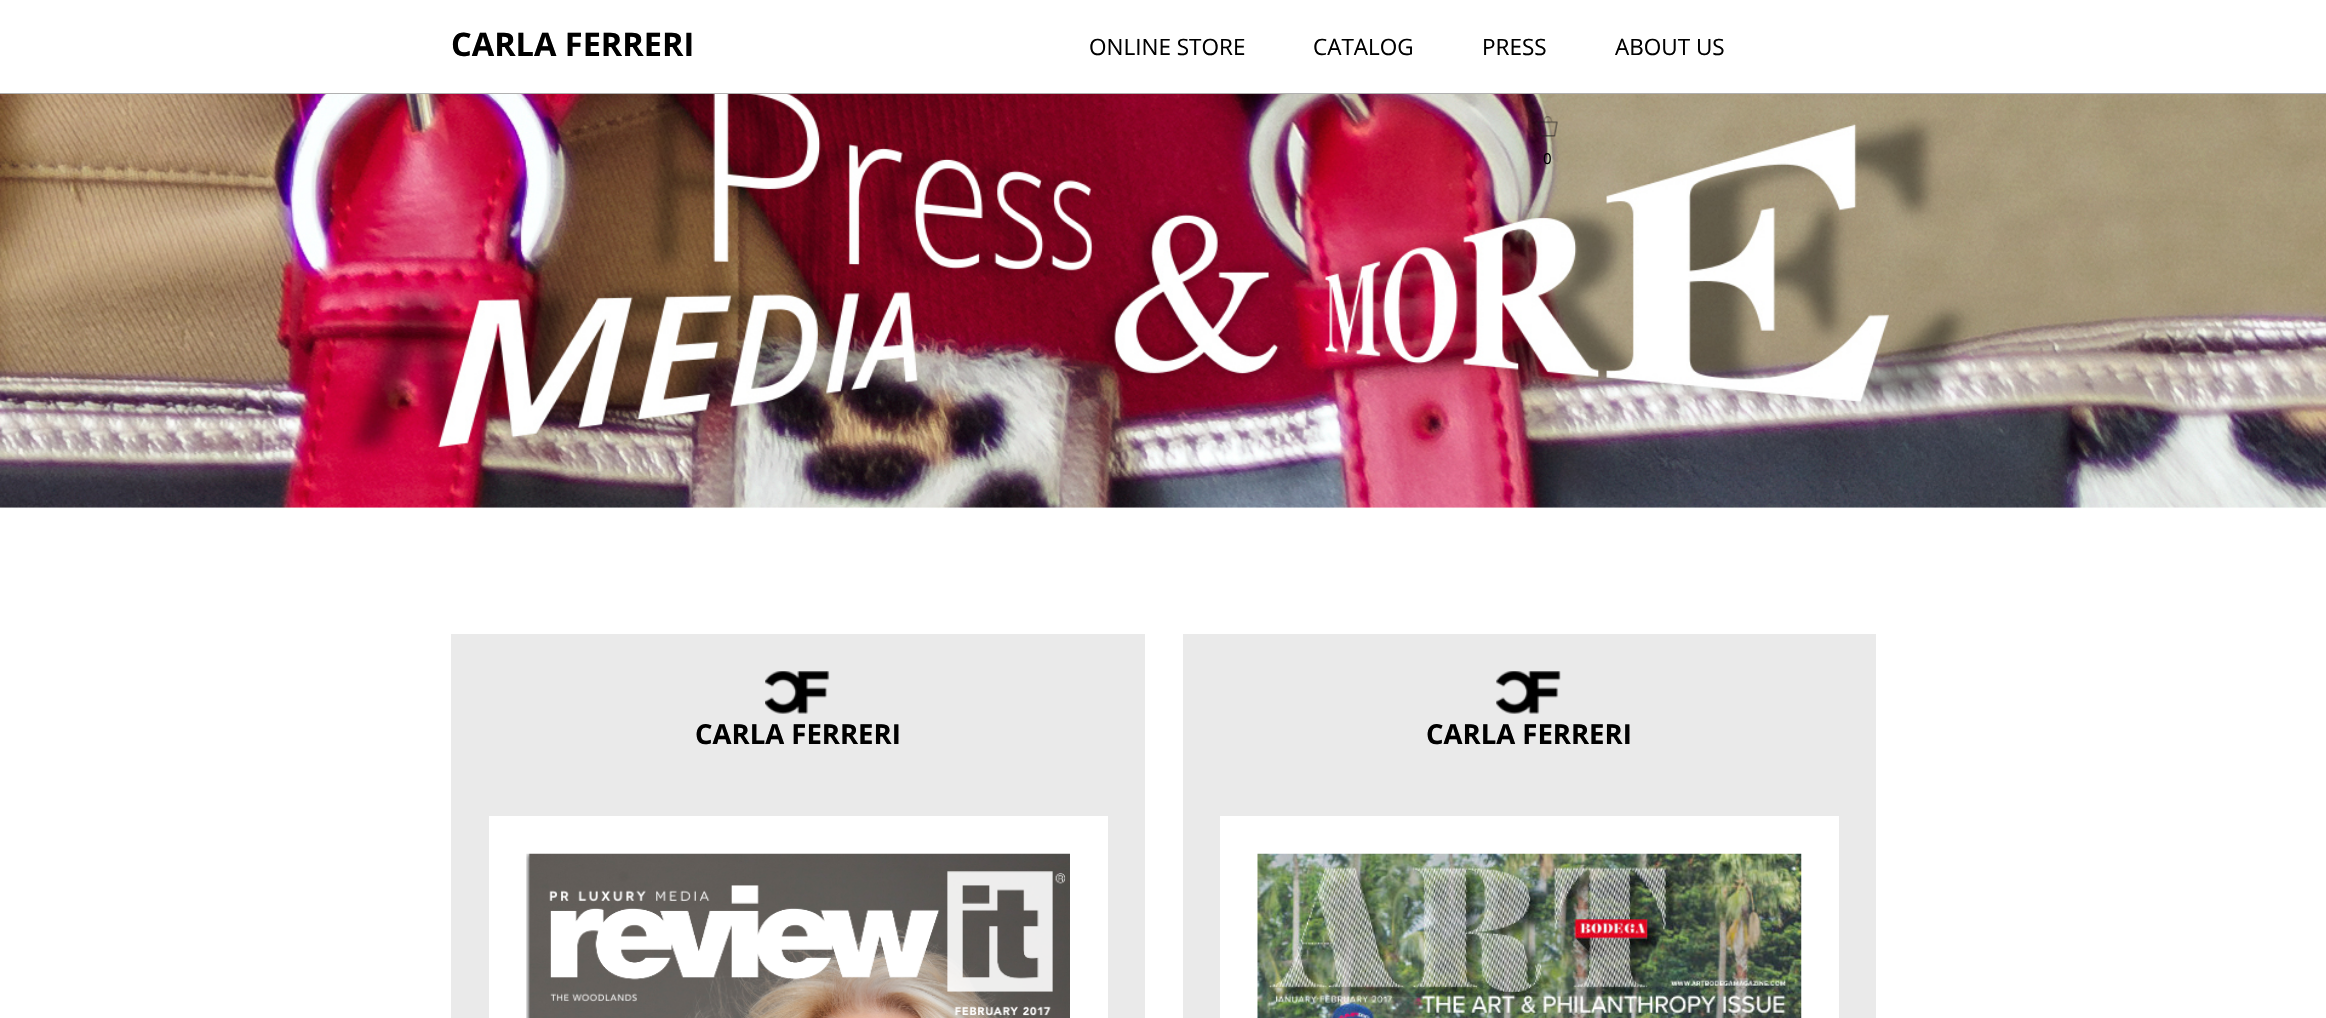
void draw(SkCanvas* canvas) {
  SkPaint paint;
  paint.setAntiAlias(true);
  auto face = [&](const char* family, int weight, float size, bool italic = false) {
    SkFontStyle style(weight, SkFontStyle::kNormal_Width,
      italic ? SkFontStyle::kItalic_Slant : SkFontStyle::kUpright_Slant);
    SkFont result(fontMgr->matchFamilyStyle(family, style), size);
    result.setSubpixel(true);
    return result;
  };
  auto paste = [&](const char* path, float x, float y, float w, float h) {
    auto image = SkImages::DeferredFromEncodedData(SkData::MakeFromFileName(path));
    canvas->drawImageRect(image, SkRect::MakeXYWH(x, y, w, h), SkSamplingOptions());
  };
  canvas->clear(0xffffffff);
  paint.setColor(0xffb1b1b1);
  canvas->drawRect(SkRect::MakeXYWH(0, 93, 2326, 1), paint);
  paste("img/2.png", 0, 94, 2326, 415);
  paste("img/1.png", 1537, 116, 21, 21);
  paint.setColor(0xffeaeaea);
  canvas->drawRect(SkRect::MakeXYWH(451, 634, 694, 384), paint);
  paste("img/3.png", 765, 671, 65, 43);
  paint.setColor(0xffffffff);
  canvas->drawRect(SkRect::MakeXYWH(489, 816, 619, 202), paint);
  paste("img/4.png", 526, 853, 544, 165);
  paint.setColor(0xffeaeaea);
  canvas->drawRect(SkRect::MakeXYWH(1183, 634, 693, 384), paint);
  paste("img/5.png", 1496, 671, 65, 43);
  paint.setColor(0xffffffff);
  canvas->drawRect(SkRect::MakeXYWH(1220, 816, 619, 202), paint);
  paste("img/6.png", 1257, 853, 545, 165);
  auto f0 = face("Open Sans", 700, 32.5f);
  paint.setColor(0xff000000);
  canvas->drawString("CARLA FERRERI", 451, 56, f0, paint);
  auto f1 = face("Open Sans", 400, 22.5f);
  {
    const struct { const char* s; float x, y; } items[] = {
      {"ONLINE STORE", 1089, 55},
      {"CATALOG", 1313, 55},
      {"PRESS", 1482, 55},
      {"ABOUT US", 1615, 55},
    };
    for (auto [s, x, y] : items) {
      canvas->drawString(s, x, y, f1, paint);
    }
  }
  auto f2 = face("Open Sans", 400, 15);
  canvas->drawString("0", 1543, 164, f2, paint);
  auto f3 = face("Open Sans", 700, 27.5f);
  canvas->drawString("CARLA FERRERI", 695, 744, f3, paint);
  canvas->drawString("CARLA FERRERI", 1426, 744, f3, paint);
}
